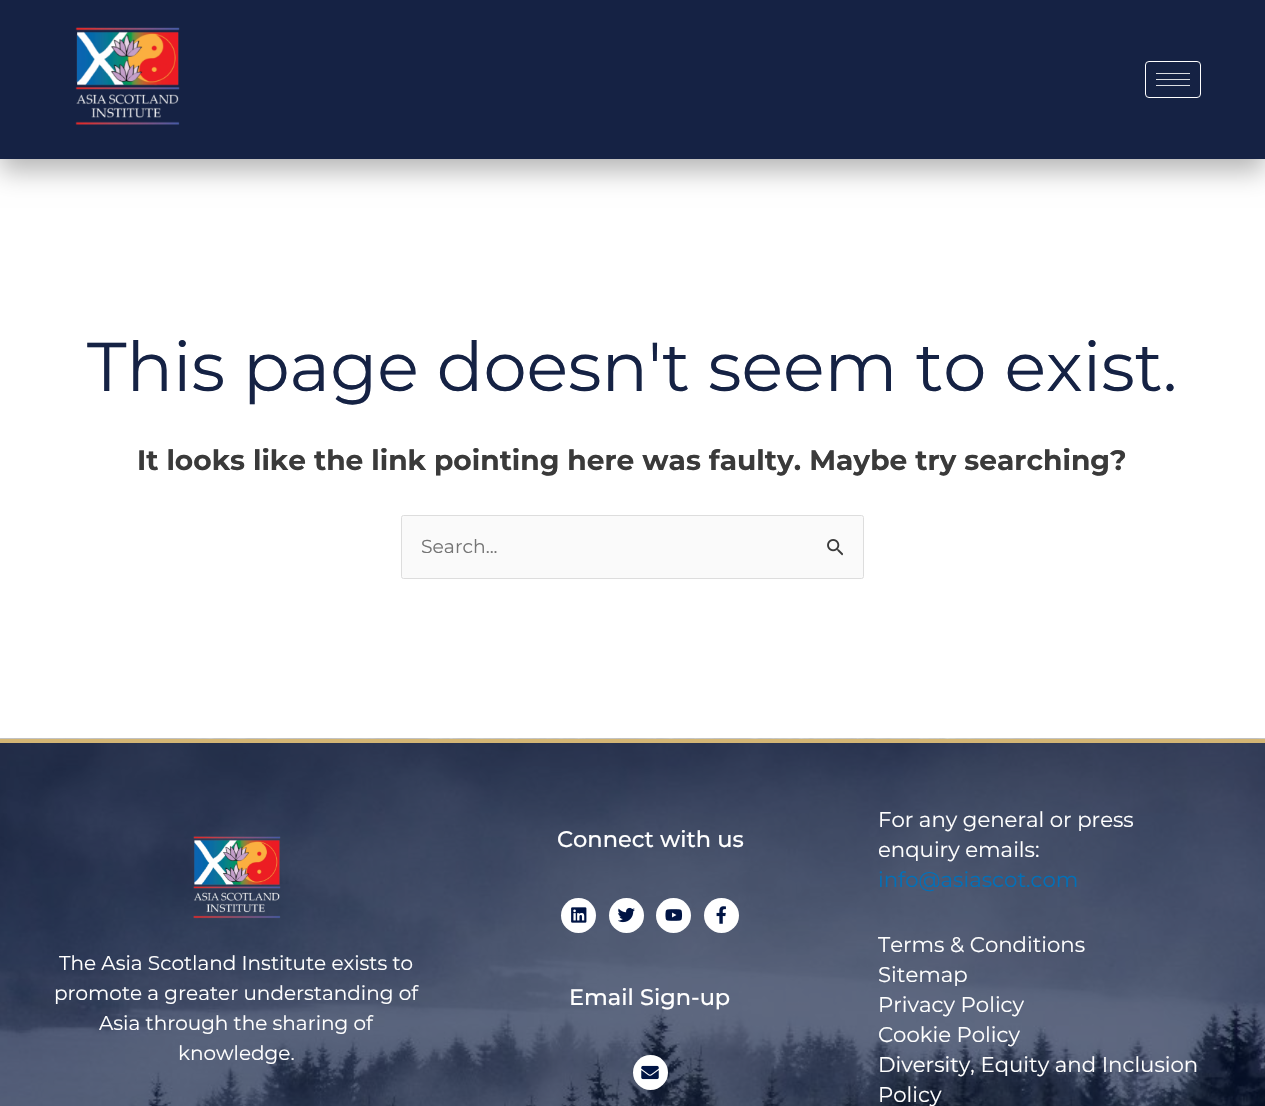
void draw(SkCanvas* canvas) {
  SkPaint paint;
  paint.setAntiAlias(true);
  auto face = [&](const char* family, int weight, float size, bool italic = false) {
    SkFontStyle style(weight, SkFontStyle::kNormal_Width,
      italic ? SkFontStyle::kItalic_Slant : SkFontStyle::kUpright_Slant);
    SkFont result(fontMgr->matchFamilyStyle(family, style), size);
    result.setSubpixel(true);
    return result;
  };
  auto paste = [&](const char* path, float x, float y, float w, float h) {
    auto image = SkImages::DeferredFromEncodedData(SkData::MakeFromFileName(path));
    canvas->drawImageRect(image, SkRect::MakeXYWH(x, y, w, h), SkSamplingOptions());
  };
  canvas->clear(0xffffffff);
  paint.setColor(0x4a000000);
  paint.setMaskFilter(SkMaskFilter::MakeBlur(kNormal_SkBlurStyle, 12.5f));
  canvas->drawRect(SkRect::MakeXYWH(0, 13, 1265, 158), paint);
  paint.setMaskFilter(nullptr);
  paint.setColor(0xff152244);
  canvas->drawRect(SkRect::MakeXYWH(0, 0, 1265, 159), paint);
  paste("img/1.png", 75, 27, 105, 98);
  paint.setStroke(true);
  paint.setStrokeWidth(1);
  paint.setColor(0xffffffff);
  canvas->drawRoundRect(SkRect::MakeXYWH(1145.5f, 61.5f, 55, 36), 3.5f, 3.5f, paint);
  paint.setStroke(false);
  {
    const struct { float x, y, w, h; SkColor color; } items[] = {
      {1156, 73, 34, 1, 0xffdcdee3},
      {1156, 79, 34, 1, 0xffdcdee3},
      {1156, 85, 34, 1, 0xffdcdee3},
    };
    for (auto [x, y, w, h, color] : items) {
      paint.setColor(color);
      canvas->drawRect(SkRect::MakeXYWH(x, y, w, h), paint);
    }
  }
  paint.setColor(0xfffafafa);
  canvas->drawRoundRect(SkRect::MakeXYWH(401.5f, 515.5f, 462, 63), 2, 2, paint);
  paint.setStroke(true);
  paint.setColor(0xffdddddd);
  canvas->drawRoundRect(SkRect::MakeXYWH(401.5f, 515.5f, 462, 63), 2, 2, paint);
  paste("img/2.png", 827, 539, 16, 17);
  paste("img/3.png", 0, 738, 1265, 368);
  paint.setStroke(false);
  paint.setColor(0xffd3b574);
  canvas->drawRect(SkRect::MakeXYWH(0, 739, 1265, 4), paint);
  paste("img/4.png", 193, 836, 88, 83);
  paint.setColor(0xffffffff);
  canvas->drawCircle(578.5f, 915.5f, 17.5f, paint);
  paste("img/5.png", 571, 907, 16, 16);
  canvas->drawCircle(626.5f, 915.5f, 17.5f, paint);
  paste("img/6.png", 618, 907, 17, 16);
  canvas->drawCircle(673.5f, 915.5f, 17.5f, paint);
  paste("img/7.png", 665, 909, 18, 12);
  canvas->drawCircle(721.5f, 915.5f, 17.5f, paint);
  paste("img/8.png", 716, 906, 10, 18);
  canvas->drawCircle(650.5f, 1072.5f, 17.5f, paint);
  paste("img/9.png", 641, 1065, 18, 15);
  auto f0 = face("Montserrat", 400, 68.75f);
  paint.setColor(0xff152244);
  canvas->drawString("This page doesn't seem to exist.", 87, 391, f0, paint);
  auto f1 = face("Montserrat", 700, 28.1f);
  paint.setColor(0xff3a3a3a);
  canvas->drawString("It looks like the link pointing here was faulty. Maybe try searching?", 137, 470, f1, paint);
  auto f2 = face("Montserrat", 400, 18.75f);
  paint.setColor(0xff757575);
  canvas->drawString("Search...", 421, 553, f2, paint);
  auto f3 = face("Montserrat", 400, 20);
  paint.setColor(0xffffffff);
  {
    const struct { const char* s; float x, y; } items[] = {
      {"The Asia Scotland Institute exists to", 59, 970},
      {"promote a greater understanding of", 54, 1000},
      {"Asia through the sharing of", 99, 1030},
      {"knowledge.", 178, 1060},
    };
    for (auto [s, x, y] : items) {
      canvas->drawString(s, x, y, f3, paint);
    }
  }
  auto f4 = face("Montserrat", 500, 22.5f);
  canvas->drawString("Connect with us", 557, 847, f4, paint);
  canvas->drawString("Email Sign-up", 569, 1005, f4, paint);
  auto f5 = face("Montserrat", 400, 21.25f);
  canvas->drawString("For any general or press", 878, 827, f5, paint);
  canvas->drawString("enquiry emails:", 878, 857, f5, paint);
  paint.setColor(0xff0170b9);
  canvas->drawString("info@asiascot.com", 878, 887, f5, paint);
  paint.setColor(0xffffffff);
  {
    const struct { const char* s; float x, y; } items[] = {
      {"Terms & Conditions", 878, 952},
      {"Sitemap", 878, 982},
      {"Privacy Policy", 878, 1012},
      {"Cookie Policy", 878, 1042},
      {"Diversity, Equity and Inclusion", 878, 1072},
      {"Policy", 878, 1102},
    };
    for (auto [s, x, y] : items) {
      canvas->drawString(s, x, y, f5, paint);
    }
  }
}
